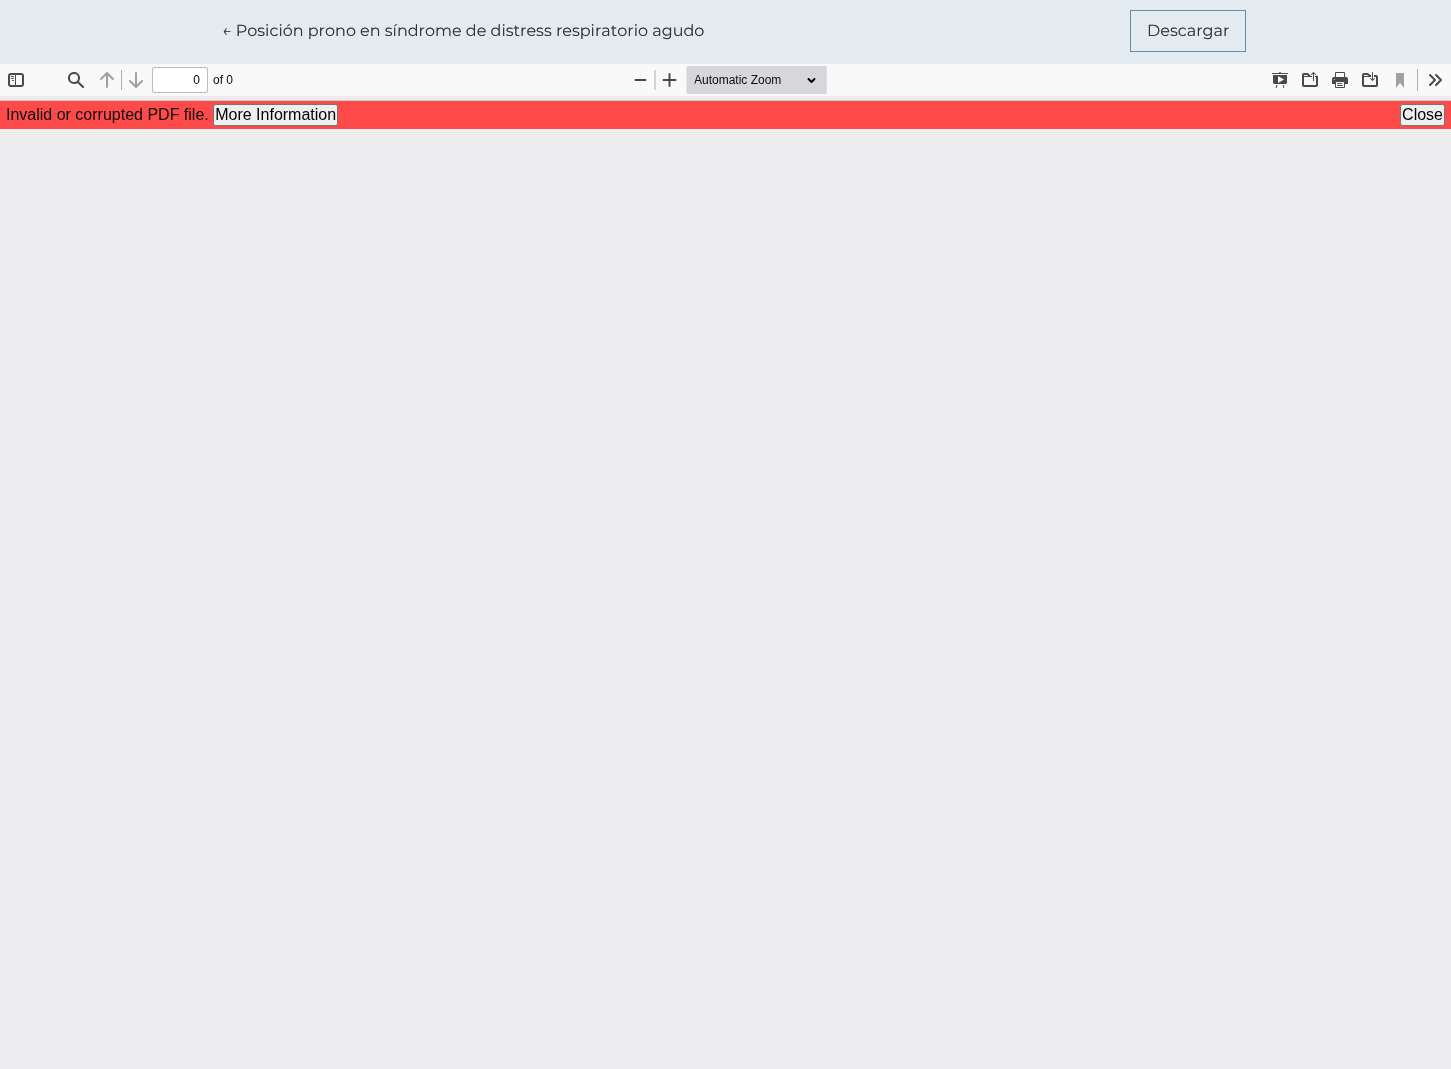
void draw(SkCanvas* canvas) {
  SkPaint paint;
  paint.setAntiAlias(true);
  auto face = [&](const char* family, int weight, float size, bool italic = false) {
    SkFontStyle style(weight, SkFontStyle::kNormal_Width,
      italic ? SkFontStyle::kItalic_Slant : SkFontStyle::kUpright_Slant);
    SkFont result(fontMgr->matchFamilyStyle(family, style), size);
    result.setSubpixel(true);
    return result;
  };
  auto paste = [&](const char* path, float x, float y, float w, float h) {
    auto image = SkImages::DeferredFromEncodedData(SkData::MakeFromFileName(path));
    canvas->drawImageRect(image, SkRect::MakeXYWH(x, y, w, h), SkSamplingOptions());
  };
  canvas->clear(0xffe4ebf0);
  paint.setStroke(true);
  paint.setStrokeWidth(1);
  paint.setColor(0xff608eaa);
  canvas->drawRect(SkRect::MakeXYWH(1130.5f, 10.5f, 115, 41), paint);
  paste("img/1.png", 0, 64, 1451, 1005);
  auto f0 = face("Montserrat", 400, 16);
  paint.setStroke(false);
  paint.setColor(0xff333333);
  canvas->drawString("← Posición prono en síndrome de distress respiratorio agudo", 222, 36, f0, paint);
  canvas->drawString("Descargar", 1147, 36, f0, paint);
}
